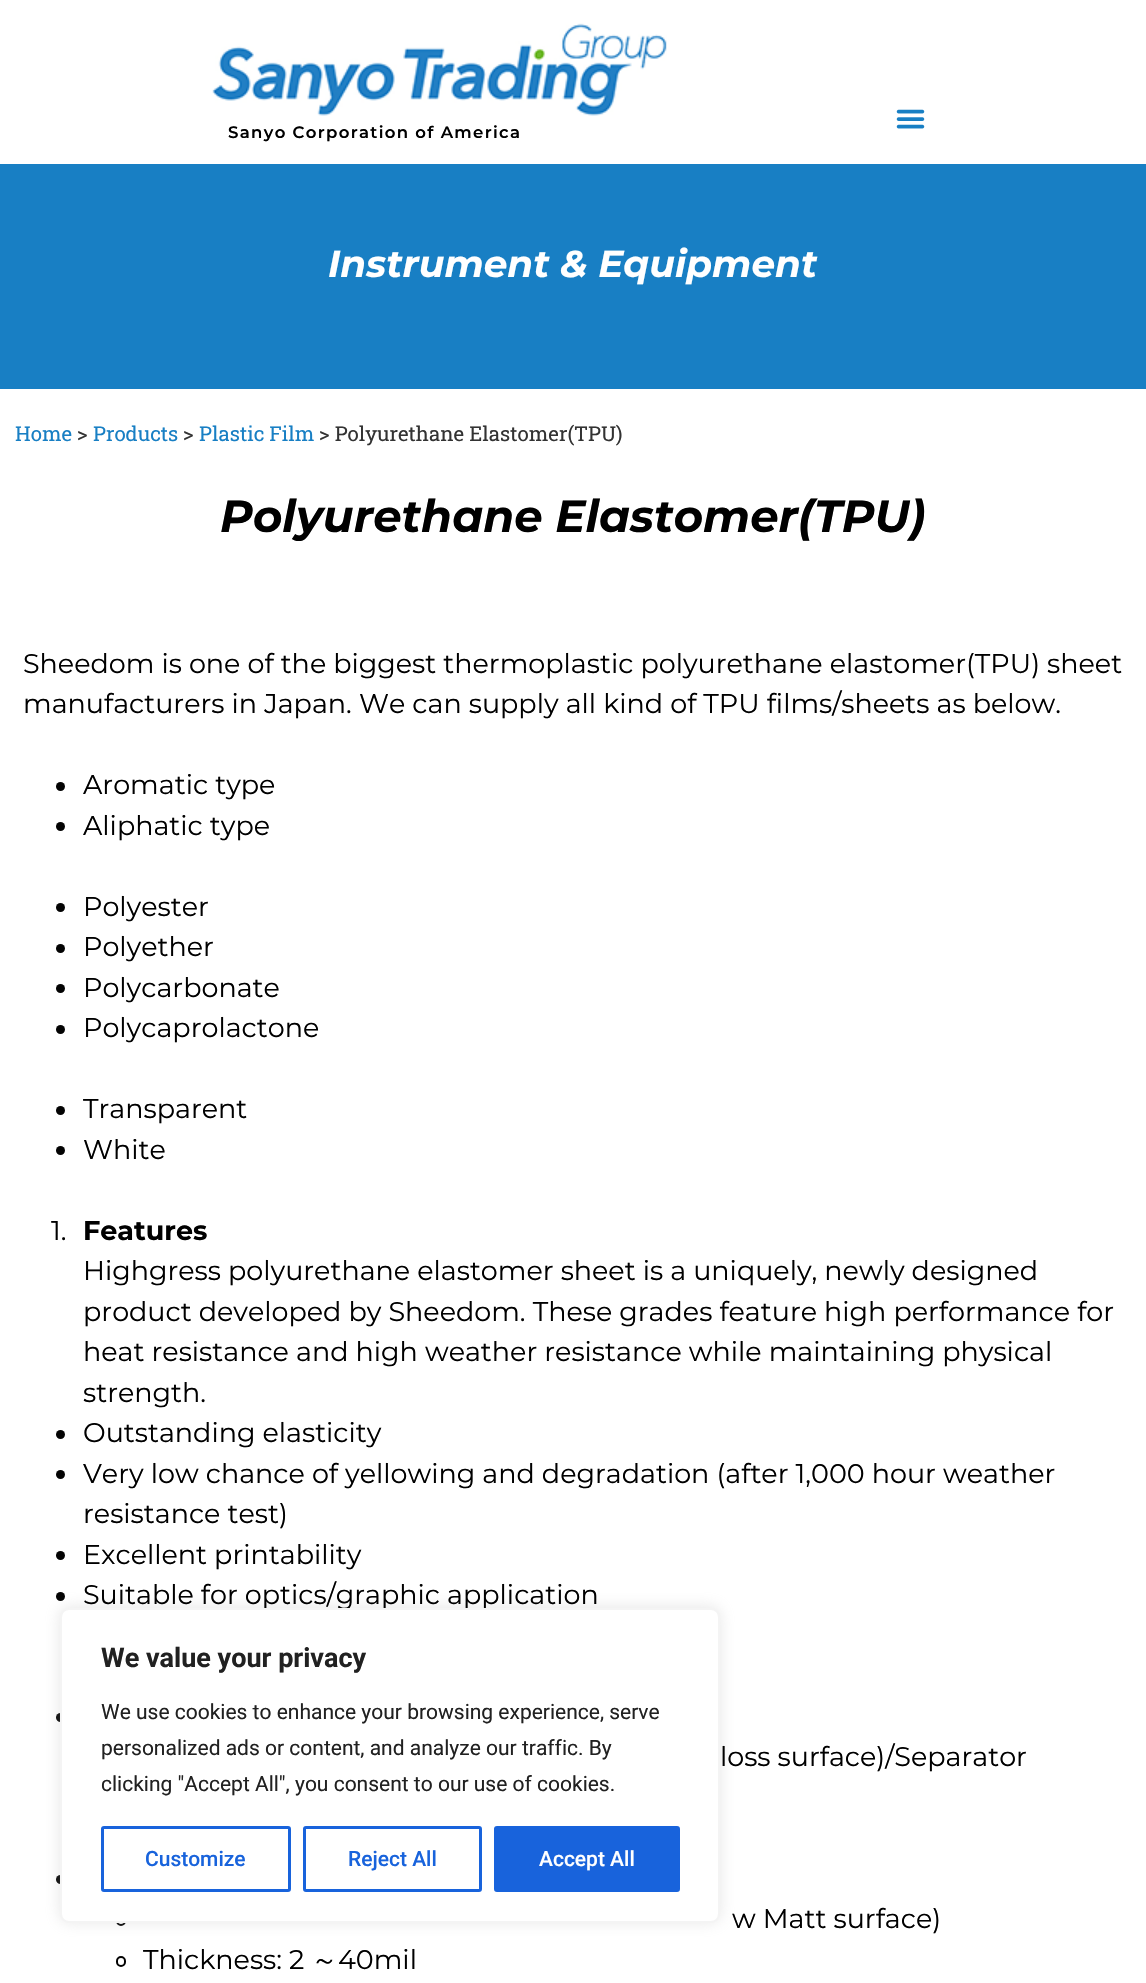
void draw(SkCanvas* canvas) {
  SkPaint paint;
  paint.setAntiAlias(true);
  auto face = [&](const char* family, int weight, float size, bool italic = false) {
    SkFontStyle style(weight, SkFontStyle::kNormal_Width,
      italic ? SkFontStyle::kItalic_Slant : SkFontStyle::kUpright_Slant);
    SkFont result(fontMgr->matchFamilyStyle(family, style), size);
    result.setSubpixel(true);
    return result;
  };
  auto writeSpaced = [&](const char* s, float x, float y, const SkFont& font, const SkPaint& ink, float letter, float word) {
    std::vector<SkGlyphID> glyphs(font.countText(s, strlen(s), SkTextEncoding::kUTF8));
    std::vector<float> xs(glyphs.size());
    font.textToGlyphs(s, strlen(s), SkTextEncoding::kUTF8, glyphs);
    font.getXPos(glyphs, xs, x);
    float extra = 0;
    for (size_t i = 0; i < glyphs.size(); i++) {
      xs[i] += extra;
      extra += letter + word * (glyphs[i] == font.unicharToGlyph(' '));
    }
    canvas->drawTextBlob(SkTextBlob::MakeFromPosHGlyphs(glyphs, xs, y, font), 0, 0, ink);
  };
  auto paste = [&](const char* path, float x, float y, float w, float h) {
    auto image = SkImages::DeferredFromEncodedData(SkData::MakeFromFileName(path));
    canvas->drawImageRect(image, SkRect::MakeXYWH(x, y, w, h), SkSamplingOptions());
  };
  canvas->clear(0xffffffff);
  paste("img/1.png", 896, 109, 29, 20);
  paste("img/2.png", 212, 23, 455, 93);
  paint.setColor(0xff187fc4);
  canvas->drawRect(SkRect::MakeXYWH(0, 164, 1146, 225), paint);
  paint.setColor(0xff030303);
  canvas->drawCircle(60.5f, 786.5f, 4.5f, paint);
  canvas->drawCircle(60.5f, 826.5f, 4.5f, paint);
  canvas->drawCircle(60.5f, 907.5f, 4.5f, paint);
  canvas->drawCircle(60.5f, 948.5f, 4.5f, paint);
  canvas->drawCircle(60.5f, 988.5f, 4.5f, paint);
  canvas->drawCircle(60.5f, 1029.5f, 4.5f, paint);
  canvas->drawCircle(60.5f, 1110.5f, 4.5f, paint);
  canvas->drawCircle(60.5f, 1150.5f, 4.5f, paint);
  canvas->drawCircle(60.5f, 1434.5f, 4.5f, paint);
  canvas->drawCircle(60.5f, 1474.5f, 4.5f, paint);
  canvas->drawCircle(60.5f, 1555.5f, 4.5f, paint);
  canvas->drawCircle(60.5f, 1596.5f, 4.5f, paint);
  canvas->drawCircle(60.5f, 1717.5f, 4.5f, paint);
  canvas->drawCircle(60.5f, 1879.5f, 4.5f, paint);
  paint.setStroke(true);
  paint.setStrokeWidth(2);
  canvas->drawCircle(121, 1921, 4, paint);
  canvas->drawRoundRect(SkRect::MakeXYWH(117, 1957, 8, 9), 4, 4, paint);
  paint.setStroke(false);
  paint.setColor(0x4dacabab);
  paint.setMaskFilter(SkMaskFilter::MakeBlur(kNormal_SkBlurStyle, 7.5f));
  canvas->drawRoundRect(SkRect::MakeXYWH(60, 1607, 660, 315), 9, 9, paint);
  paint.setMaskFilter(nullptr);
  auto f0 = face("Montserrat", 600, 16.5f);
  paint.setColor(0xff000000);
  writeSpaced("Sanyo Corporation of America", 228, 138, f0, paint, 1.35f, 0);
  auto f1 = face("Montserrat", 700, 37.5f, true);
  paint.setColor(0xffffffff);
  canvas->drawString("Instrument & Equipment", 328, 277, f1, paint);
  auto f2 = face("Roboto Slab", 400, 20.4f);
  paint.setColor(0xff187fc4);
  canvas->drawString("Home", 15, 441, f2, paint);
  paint.setColor(0xff333333);
  canvas->drawString(">", 77, 441, f2, paint);
  paint.setColor(0xff187fc4);
  canvas->drawString("Products", 93, 441, f2, paint);
  paint.setColor(0xff333333);
  canvas->drawString(">", 183, 441, f2, paint);
  paint.setColor(0xff187fc4);
  canvas->drawString("Plastic Film", 199, 441, f2, paint);
  paint.setColor(0xff333333);
  canvas->drawString("> Polyurethane Elastomer(TPU)", 319, 441, f2, paint);
  auto f3 = face("Montserrat", 700, 45, true);
  paint.setColor(0xff000000);
  canvas->drawString("Polyurethane Elastomer(TPU)", 220, 532, f3, paint);
  auto f4 = face("Montserrat", 400, 27);
  {
    const struct { const char* s; float x, y; } items[] = {
      {"Sheedom is one of the biggest thermoplastic polyurethane elastomer(TPU) sheet", 23, 673},
      {"manufacturers in Japan. We can supply all kind of TPU films/sheets as below.", 23, 713},
      {"Aromatic type", 83, 794},
      {"Aliphatic type", 83, 835},
      {"Polyester", 83, 916},
      {"Polyether", 83, 956},
      {"Polycarbonate", 83, 997},
      {"Polycaprolactone", 83, 1037},
      {"Transparent", 83, 1118},
      {"White", 83, 1159},
      {"1.", 51, 1240},
    };
    for (auto [s, x, y] : items) {
      canvas->drawString(s, x, y, f4, paint);
    }
  }
  auto f5 = face("Montserrat", 700, 27);
  canvas->drawString("Features", 83, 1240, f5, paint);
  {
    const struct { const char* s; float x, y; } items[] = {
      {"Highgress polyurethane elastomer sheet is a uniquely, newly designed", 83, 1280},
      {"product developed by Sheedom. These grades feature high performance for", 83, 1321},
      {"heat resistance and high weather resistance while maintaining physical", 83, 1361},
      {"strength.", 83, 1402},
      {"Outstanding elasticity", 83, 1442},
      {"Very low chance of yellowing and degradation (after 1,000 hour weather", 83, 1483},
      {"resistance test)", 83, 1523},
      {"Excellent printability", 83, 1564},
      {"Suitable for optics/graphic application", 83, 1604},
      {"loss surface)/Separator", 720, 1766},
      {"w Matt surface)", 732, 1928},
      {"Thickness: 2", 143, 1969},
    };
    for (auto [s, x, y] : items) {
      canvas->drawString(s, x, y, f4, paint);
    }
  }
  auto f6 = face("WenQuanYi Zen Hei", 500, 27);
  canvas->drawString("～", 311, 1969, f6, paint);
  canvas->drawString("40mil", 338, 1969, f4, paint);
  paint.setColor(0xffffffff);
  canvas->drawRoundRect(SkRect::MakeXYWH(61, 1609, 658, 313), 8, 8, paint);
  paint.setStroke(true);
  paint.setColor(0xfff4f4f4);
  canvas->drawRoundRect(SkRect::MakeXYWH(61, 1609, 658, 313), 8, 8, paint);
  auto f7 = face("Roboto", 700, 27);
  paint.setStroke(false);
  paint.setColor(0xff212121);
  canvas->drawString("We value your privacy", 101, 1667, f7, paint);
  auto f8 = face("Roboto", 400, 21);
  {
    const struct { const char* s; float x, y; } items[] = {
      {"We use cookies to enhance your browsing experience, serve", 101, 1719},
      {"personalized ads or content, and analyze our traffic. By", 101, 1755},
      {"clicking \"Accept All\", you consent to our use of cookies.", 101, 1791},
    };
    for (auto [s, x, y] : items) {
      canvas->drawString(s, x, y, f8, paint);
    }
  }
  paint.setStroke(true);
  paint.setStrokeWidth(3);
  paint.setColor(0xff1863dc);
  canvas->drawRoundRect(SkRect::MakeXYWH(102.5f, 1827.5f, 187, 63), 1.5f, 1.5f, paint);
  auto f9 = face("Roboto", 500, 21);
  paint.setStroke(false);
  canvas->drawString("Customize", 145, 1866, f9, paint);
  paint.setStroke(true);
  canvas->drawRoundRect(SkRect::MakeXYWH(304.5f, 1827.5f, 176, 63), 1.5f, 1.5f, paint);
  paint.setStroke(false);
  canvas->drawString("Reject All", 348, 1866, f9, paint);
  canvas->drawRoundRect(SkRect::MakeXYWH(495.5f, 1827.5f, 183, 63), 1.5f, 1.5f, paint);
  paint.setStroke(true);
  canvas->drawRoundRect(SkRect::MakeXYWH(495.5f, 1827.5f, 183, 63), 1.5f, 1.5f, paint);
  paint.setStroke(false);
  paint.setColor(0xffffffff);
  canvas->drawString("Accept All", 539, 1866, f9, paint);
}
